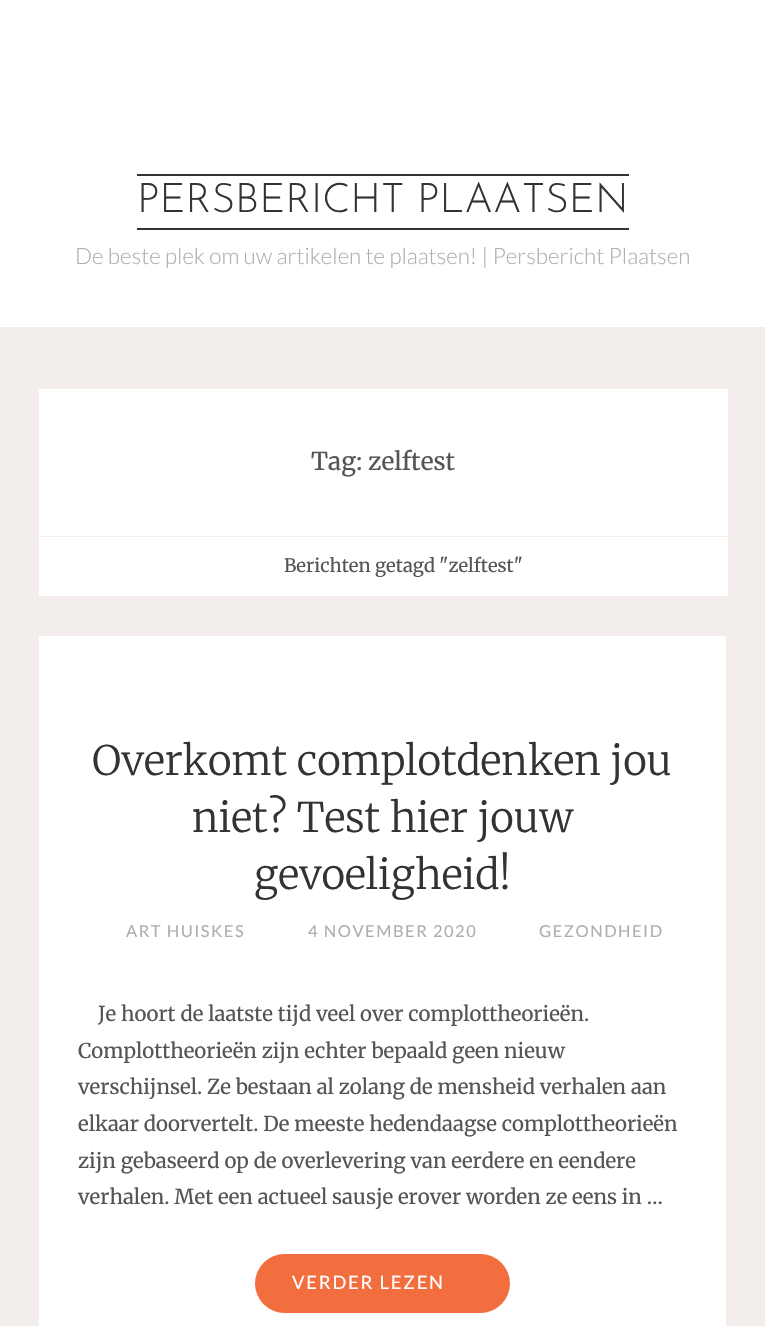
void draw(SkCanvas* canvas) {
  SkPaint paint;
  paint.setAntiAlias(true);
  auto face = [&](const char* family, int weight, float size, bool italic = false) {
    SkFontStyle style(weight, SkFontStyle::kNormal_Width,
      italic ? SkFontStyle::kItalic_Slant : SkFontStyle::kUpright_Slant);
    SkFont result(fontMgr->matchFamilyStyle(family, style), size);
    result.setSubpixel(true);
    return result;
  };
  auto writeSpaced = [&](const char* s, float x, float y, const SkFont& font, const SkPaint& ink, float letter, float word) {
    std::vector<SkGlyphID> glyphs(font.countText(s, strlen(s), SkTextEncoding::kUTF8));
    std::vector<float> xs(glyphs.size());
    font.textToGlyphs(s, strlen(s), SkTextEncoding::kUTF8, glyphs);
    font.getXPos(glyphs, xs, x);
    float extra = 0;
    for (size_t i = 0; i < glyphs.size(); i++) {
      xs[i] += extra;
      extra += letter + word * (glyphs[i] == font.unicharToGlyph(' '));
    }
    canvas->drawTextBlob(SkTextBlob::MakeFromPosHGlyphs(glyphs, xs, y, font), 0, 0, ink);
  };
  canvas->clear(0xfff3eeeb);
  {
    const struct { float x, y, w, h; SkColor color; } items[] = {
      {0, 0, 765, 327, 0xffffffff},
      {137, 174, 492, 2, 0xff333333},
      {137, 228, 492, 2, 0xff333333},
      {39, 389, 689, 147, 0xffffffff},
      {39, 537, 689, 59, 0xffffffff},
      {39, 636, 687, 690, 0xffffffff},
    };
    for (auto [x, y, w, h, color] : items) {
      paint.setColor(color);
      canvas->drawRect(SkRect::MakeXYWH(x, y, w, h), paint);
    }
  }
  paint.setColor(0xfff26e3f);
  canvas->drawRoundRect(SkRect::MakeXYWH(255, 1254, 255, 59), 29.5f, 29.5f, paint);
  auto f0 = face("Josefin Sans", 300, 40.75f);
  paint.setColor(0xff333333);
  canvas->drawString("PERSBERICHT PLAATSEN", 137, 212, f0, paint);
  auto f1 = face("Lato", 300, 22.45f);
  paint.setColor(0xffaeaeae);
  canvas->drawString("De beste plek om uw artikelen te plaatsen! | Persbericht Plaatsen", 75, 264, f1, paint);
  auto f2 = face("Merriweather", 400, 24.5f);
  paint.setColor(0xff555555);
  canvas->drawString("Tag: zelftest", 311, 470, f2, paint);
  auto f3 = face("Merriweather", 400, 18.4f);
  canvas->drawString("Berichten getagd \"zelftest\"", 284, 572, f3, paint);
  auto f4 = face("Merriweather", 300, 40.75f);
  paint.setColor(0xff333333);
  {
    const struct { const char* s; float x, y; } items[] = {
      {"Overkomt complotdenken jou", 92, 775},
      {"niet? Test hier jouw", 192, 832},
      {"gevoeligheid!", 254, 889},
    };
    for (auto [s, x, y] : items) {
      canvas->drawString(s, x, y, f4, paint);
    }
  }
  auto f5 = face("Lato", 400, 16.5f);
  paint.setColor(0xffaeaeae);
  {
    const struct { const char* s; float x, y; } items[] = {
      {"ART HUISKES", 126, 937},
      {"4 NOVEMBER 2020", 308, 937},
      {"GEZONDHEID", 539, 937},
    };
    for (auto [s, x, y] : items) {
      writeSpaced(s, x, y, f5, paint, 1.5f, 0);
    }
  }
  auto f6 = face("Merriweather", 400, 20.4f);
  paint.setColor(0xff555555);
  {
    const struct { const char* s; float x, y; } items[] = {
      {"Je hoort de laatste tijd veel over complottheorieën.", 98, 1021},
      {"Complottheorieën zijn echter bepaald geen nieuw", 78, 1058},
      {"verschijnsel. Ze bestaan al zolang de mensheid verhalen aan", 78, 1094},
      {"elkaar doorvertelt. De meeste hedendaagse complottheorieën", 78, 1131},
      {"zijn gebaseerd op de overlevering van eerdere en eendere", 78, 1168},
      {"verhalen. Met een actueel sausje erover worden ze eens in …", 78, 1204},
    };
    for (auto [s, x, y] : items) {
      canvas->drawString(s, x, y, f6, paint);
    }
  }
  auto f7 = face("Lato", 400, 18.4f);
  paint.setColor(0xffffffff);
  writeSpaced("VERDER LEZEN", 292, 1289, f7, paint, 1.8f, 0);
}
